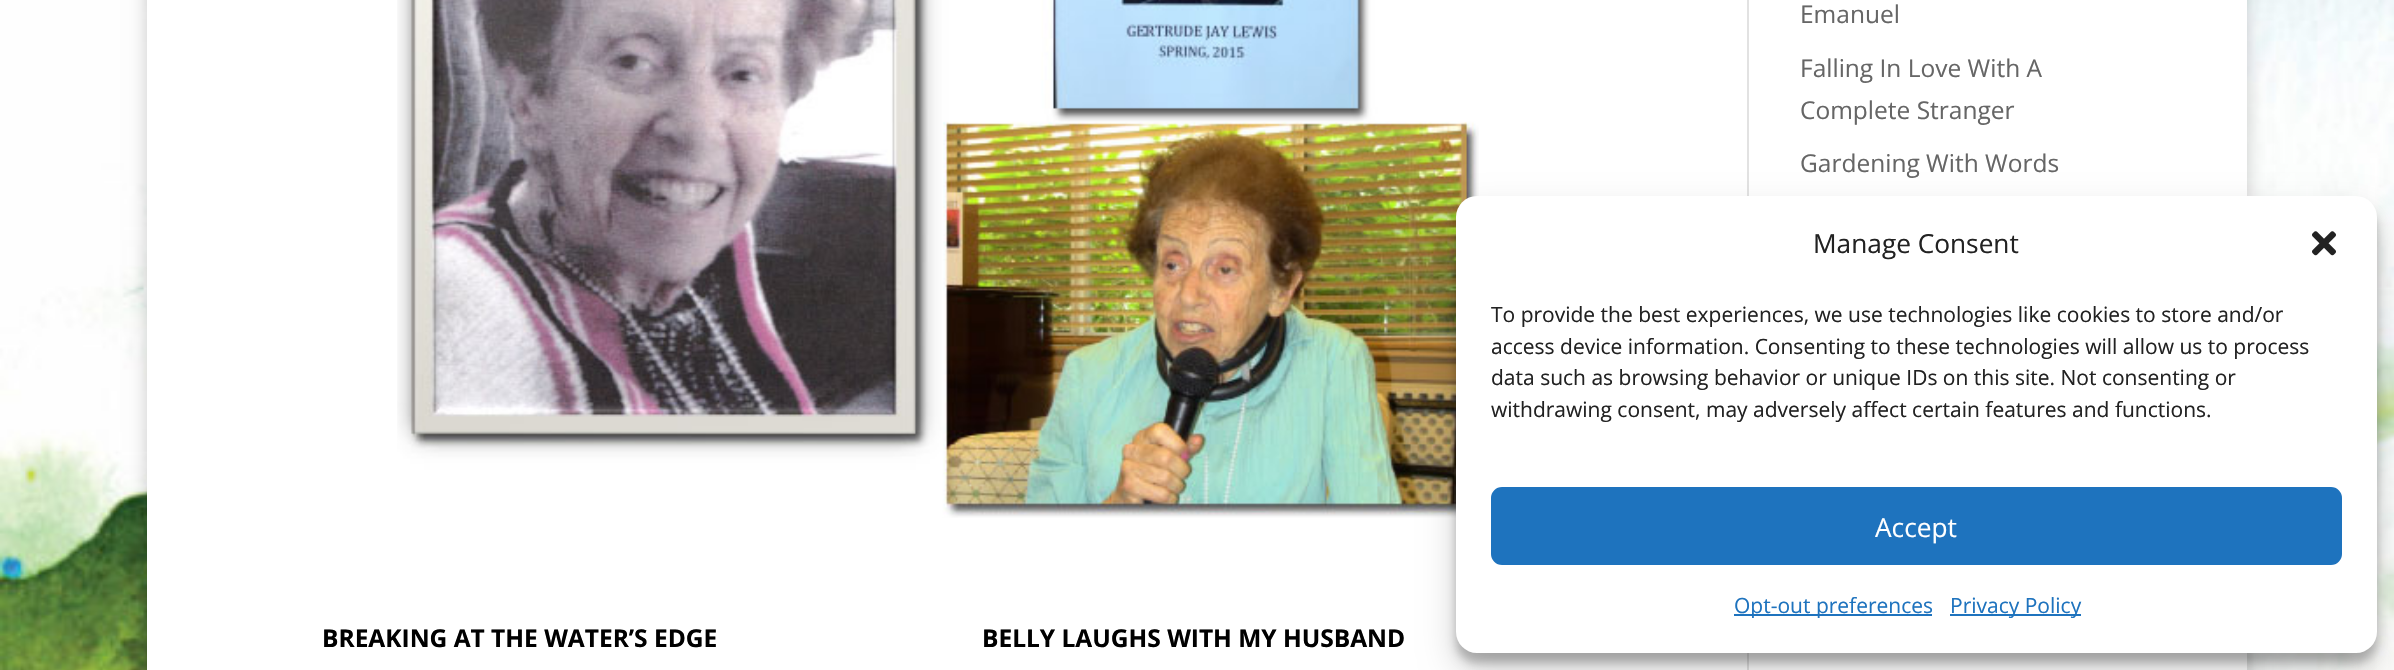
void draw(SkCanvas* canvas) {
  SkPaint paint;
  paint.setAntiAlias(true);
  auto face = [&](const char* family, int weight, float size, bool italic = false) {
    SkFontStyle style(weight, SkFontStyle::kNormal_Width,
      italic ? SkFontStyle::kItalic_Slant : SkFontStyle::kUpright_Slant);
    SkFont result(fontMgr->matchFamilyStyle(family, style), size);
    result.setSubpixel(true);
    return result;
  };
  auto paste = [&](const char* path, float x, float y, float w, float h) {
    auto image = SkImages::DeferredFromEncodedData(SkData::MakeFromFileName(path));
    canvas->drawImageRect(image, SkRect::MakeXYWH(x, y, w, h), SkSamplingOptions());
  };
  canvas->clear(0xffffffff);
  paste("img/1.png", 0, 0, 2394, 670);
  paint.setColor(0x33000000);
  paint.setMaskFilter(SkMaskFilter::MakeBlur(kNormal_SkBlurStyle, 9));
  canvas->drawRect(SkRect::MakeXYWH(147, -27, 2100, 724), paint);
  paint.setMaskFilter(nullptr);
  paint.setColor(0xffffffff);
  canvas->drawRect(SkRect::MakeXYWH(147, 0, 2100, 670), paint);
  paint.setColor(0xffe2e2e2);
  canvas->drawRect(SkRect::MakeXYWH(1747, 0, 2, 670), paint);
  paste("img/2.png", 397, 0, 1082, 518);
  paint.setColor(0x3b000000);
  paint.setMaskFilter(SkMaskFilter::MakeBlur(kNormal_SkBlurStyle, 5));
  canvas->drawRoundRect(SkRect::MakeXYWH(1456, 207, 921, 456), 21, 21, paint);
  paint.setMaskFilter(nullptr);
  paint.setColor(0x30000000);
  paint.setMaskFilter(SkMaskFilter::MakeBlur(kNormal_SkBlurStyle, 17.5f));
  canvas->drawRoundRect(SkRect::MakeXYWH(1456, 214, 921, 456), 21, 21, paint);
  paint.setMaskFilter(nullptr);
  paint.setColor(0xffffffff);
  canvas->drawRoundRect(SkRect::MakeXYWH(1456, 196, 921, 457), 21, 21, paint);
  paste("img/3.png", 2312, 231, 24, 25);
  paint.setColor(0xff1e73be);
  canvas->drawRoundRect(SkRect::MakeXYWH(1492, 488, 849, 76), 10, 10, paint);
  paint.setStroke(true);
  paint.setStrokeWidth(2);
  canvas->drawRoundRect(SkRect::MakeXYWH(1492, 488, 849, 76), 10, 10, paint);
  paint.setStroke(false);
  canvas->drawRect(SkRect::MakeXYWH(1734, 614, 198, 2), paint);
  canvas->drawRect(SkRect::MakeXYWH(1950, 614, 131, 2), paint);
  auto f0 = face("Open Sans", 400, 24.5f);
  paint.setColor(0xff666666);
  {
    const struct { const char* s; float x, y; } items[] = {
      {"Emanuel", 1800, 23},
      {"Falling In Love With A", 1800, 77},
      {"Complete Stranger", 1800, 119},
      {"Gardening With Words", 1800, 172},
    };
    for (auto [s, x, y] : items) {
      canvas->drawString(s, x, y, f0, paint);
    }
  }
  auto f1 = face("Open Sans", 700, 24.5f);
  paint.setColor(0xff000000);
  canvas->drawString("BREAKING AT THE WATER’S EDGE", 322, 647, f1, paint);
  canvas->drawString("BELLY LAUGHS WITH MY HUSBAND", 982, 647, f1, paint);
  auto f2 = face("Open Sans", 400, 26.25f);
  paint.setColor(0xff222222);
  canvas->drawString("Manage Consent", 1813, 253, f2, paint);
  auto f3 = face("Open Sans", 400, 21);
  {
    const struct { const char* s; float x, y; } items[] = {
      {"To provide the best experiences, we use technologies like cookies to store and/or", 1491, 322},
      {"access device information. Consenting to these technologies will allow us to process", 1491, 354},
      {"data such as browsing behavior or unique IDs on this site. Not consenting or", 1491, 385},
      {"withdrawing consent, may adversely affect certain features and functions.", 1491, 417},
    };
    for (auto [s, x, y] : items) {
      canvas->drawString(s, x, y, f3, paint);
    }
  }
  paint.setColor(0xffffffff);
  canvas->drawString("Accept", 1875, 537, f2, paint);
  paint.setColor(0xff1e73be);
  canvas->drawString("Opt-out preferences", 1734, 613, f3, paint);
  canvas->drawString("Privacy Policy", 1950, 613, f3, paint);
}
